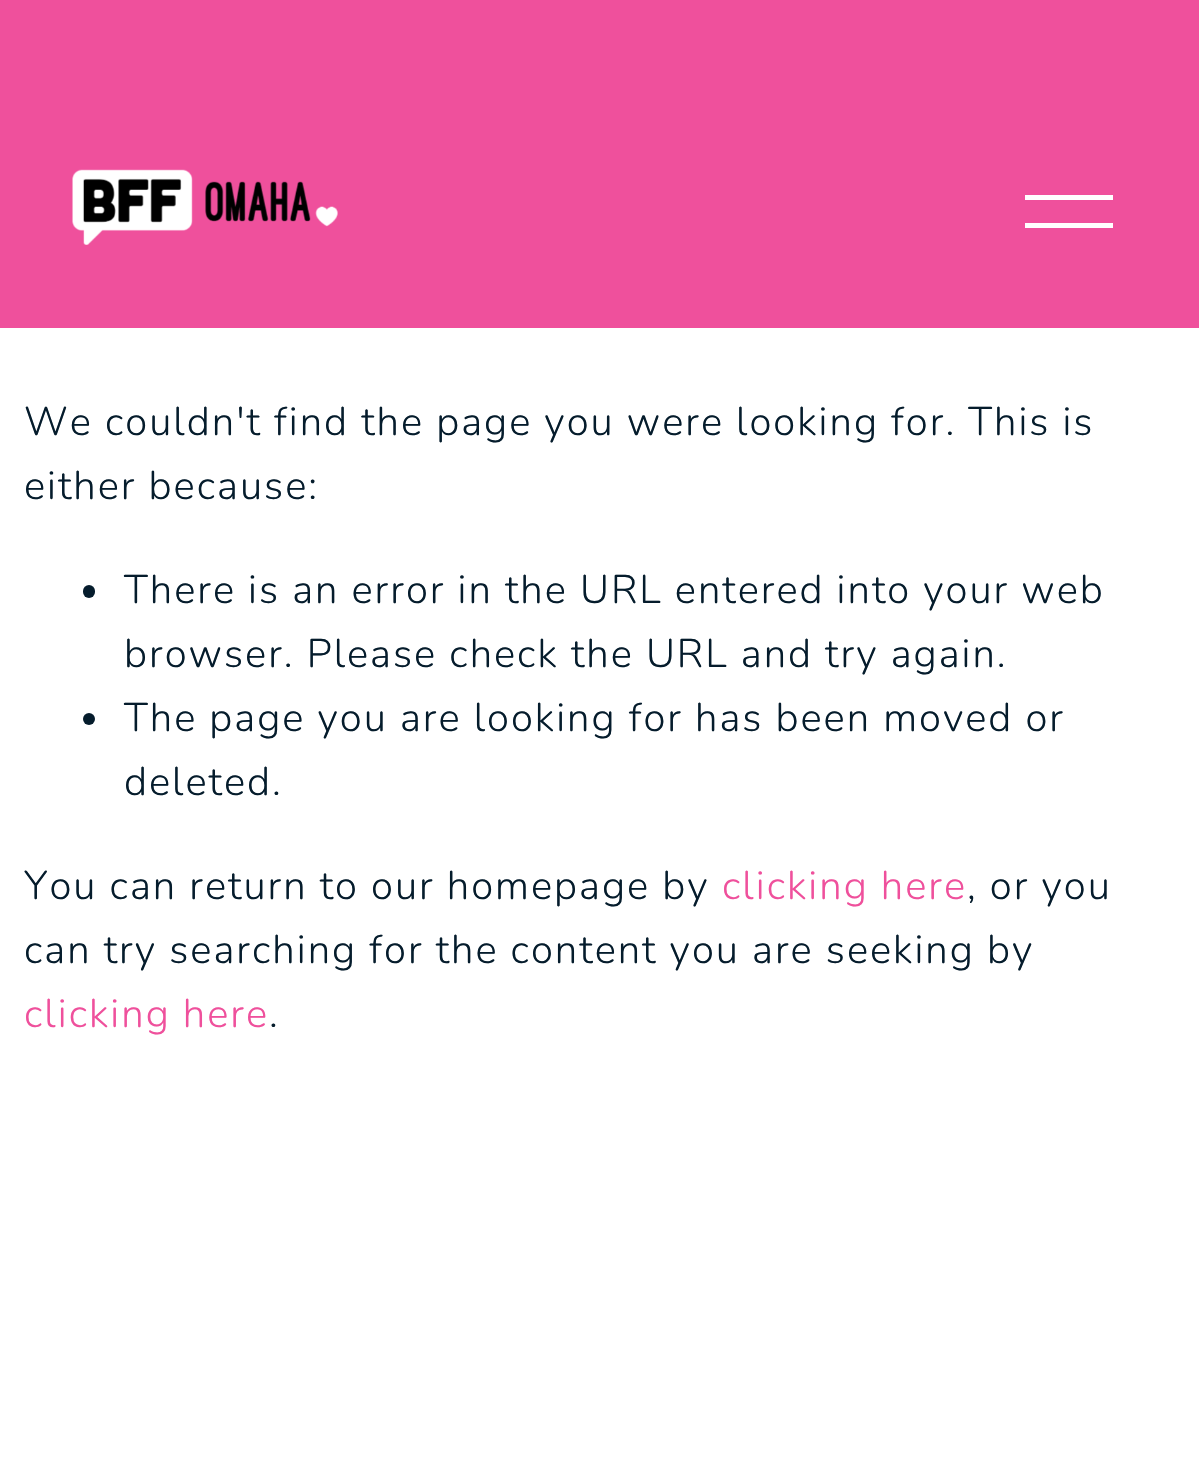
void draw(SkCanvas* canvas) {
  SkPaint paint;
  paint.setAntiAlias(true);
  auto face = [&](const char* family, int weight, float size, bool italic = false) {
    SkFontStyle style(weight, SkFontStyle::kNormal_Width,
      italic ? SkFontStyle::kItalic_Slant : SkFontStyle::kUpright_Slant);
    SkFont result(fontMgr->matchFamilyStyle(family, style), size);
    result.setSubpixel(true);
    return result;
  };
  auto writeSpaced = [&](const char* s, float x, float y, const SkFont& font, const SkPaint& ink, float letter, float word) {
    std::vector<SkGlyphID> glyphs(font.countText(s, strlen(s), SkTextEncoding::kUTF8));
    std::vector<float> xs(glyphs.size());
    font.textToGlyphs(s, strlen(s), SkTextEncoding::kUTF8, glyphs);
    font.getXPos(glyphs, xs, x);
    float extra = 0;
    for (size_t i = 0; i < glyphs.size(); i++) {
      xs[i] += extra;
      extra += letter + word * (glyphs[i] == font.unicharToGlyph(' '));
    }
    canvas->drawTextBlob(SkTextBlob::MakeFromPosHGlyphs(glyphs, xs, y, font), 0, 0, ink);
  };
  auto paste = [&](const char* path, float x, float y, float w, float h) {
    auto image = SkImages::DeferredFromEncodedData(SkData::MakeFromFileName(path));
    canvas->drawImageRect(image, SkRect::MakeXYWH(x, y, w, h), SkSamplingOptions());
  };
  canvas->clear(0xffffffff);
  paint.setColor(0xffef509c);
  canvas->drawRect(SkRect::MakeXYWH(0, 0, 1199, 328), paint);
  paste("img/1.png", 72, 169, 266, 76);
  paint.setColor(0xffffffff);
  canvas->drawRect(SkRect::MakeXYWH(1025, 195, 88, 5), paint);
  canvas->drawRect(SkRect::MakeXYWH(1025, 223, 88, 5), paint);
  paint.setColor(0xff051c2c);
  canvas->drawRoundRect(SkRect::MakeXYWH(83, 585, 12, 13), 6, 6, paint);
  canvas->drawCircle(89, 719, 6, paint);
  auto f0 = face("Nunito", 300, 40);
  {
    const struct { const char* s; float x, y; } items[] = {
      {"We couldn't find the page you were looking for. This is", 24, 435},
      {"either because:", 24, 499},
      {"There is an error in the URL entered into your web", 124, 603},
      {"browser. Please check the URL and try again.", 124, 667},
      {"The page you are looking for has been moved or", 124, 731},
      {"deleted.", 124, 795},
      {"You can return to our homepage by", 24, 899},
    };
    for (auto [s, x, y] : items) {
      writeSpaced(s, x, y, f0, paint, 2, 0);
    }
  }
  paint.setColor(0xffef509c);
  writeSpaced("clicking here", 722, 899, f0, paint, 2, 0);
  paint.setColor(0xff051c2c);
  writeSpaced(", or you", 967, 899, f0, paint, 2, 0);
  writeSpaced("can try searching for the content you are seeking by", 24, 963, f0, paint, 2, 0);
  paint.setColor(0xffef509c);
  writeSpaced("clicking here", 24, 1027, f0, paint, 2, 0);
  paint.setColor(0xff051c2c);
  writeSpaced(".", 269, 1027, f0, paint, 2, 0);
}
